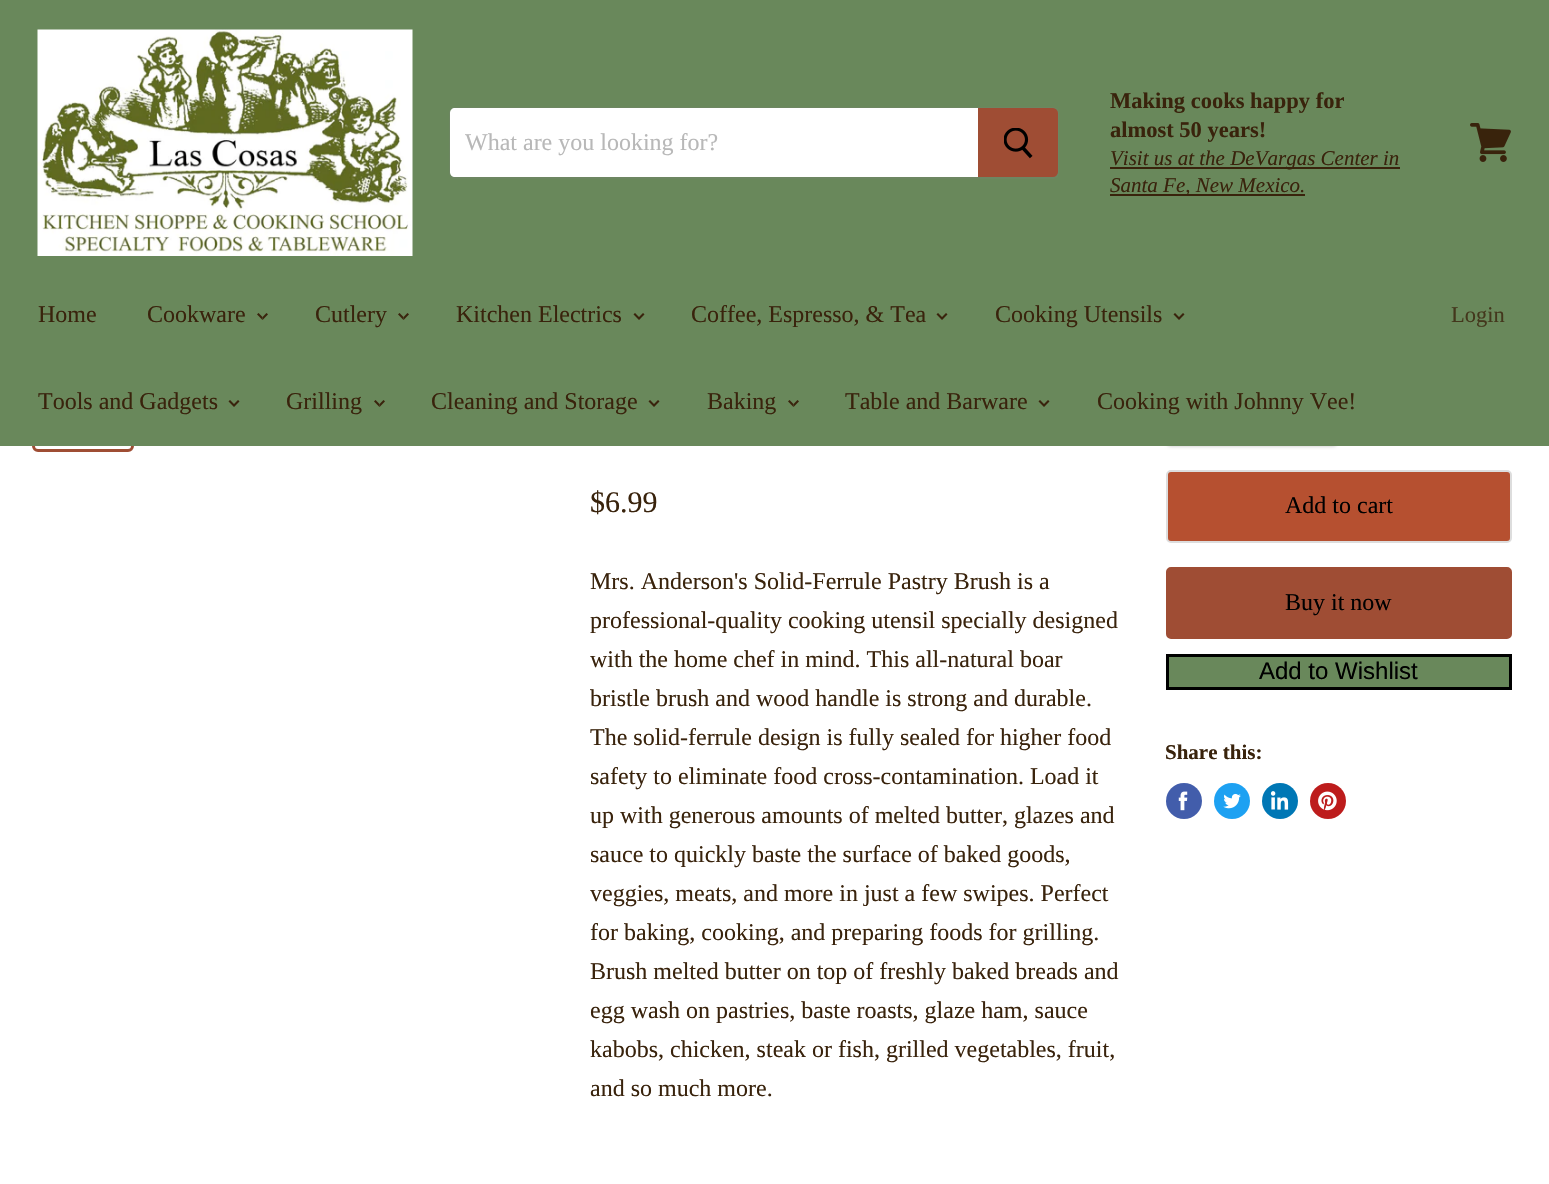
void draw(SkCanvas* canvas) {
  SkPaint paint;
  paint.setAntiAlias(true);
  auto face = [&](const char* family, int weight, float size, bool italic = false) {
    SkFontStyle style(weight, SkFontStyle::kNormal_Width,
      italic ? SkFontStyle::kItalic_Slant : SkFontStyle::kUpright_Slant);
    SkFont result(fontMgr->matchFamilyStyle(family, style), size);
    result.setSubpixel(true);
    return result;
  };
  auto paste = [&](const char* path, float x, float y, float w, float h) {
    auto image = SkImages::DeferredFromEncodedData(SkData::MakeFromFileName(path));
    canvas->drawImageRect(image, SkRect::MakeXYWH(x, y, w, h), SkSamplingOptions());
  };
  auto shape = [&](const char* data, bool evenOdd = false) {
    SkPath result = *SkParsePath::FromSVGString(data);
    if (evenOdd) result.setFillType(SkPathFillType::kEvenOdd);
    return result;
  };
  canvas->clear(0xffffffff);
  paint.setStroke(true);
  paint.setStrokeWidth(3);
  paint.setColor(0xff9f4d34);
  canvas->drawRoundRect(SkRect::MakeXYWH(33.5f, 351.5f, 99, 99), 4.5f, 4.5f, paint);
  paint.setStroke(false);
  paint.setColor(0x26000000);
  paint.setMaskFilter(SkMaskFilter::MakeBlur(kNormal_SkBlurStyle, 1.5f));
  canvas->drawRoundRect(SkRect::MakeXYWH(1166, 372, 172, 75), 5, 5, paint);
  paint.setMaskFilter(nullptr);
  paint.setColor(0xff69885b);
  canvas->drawRect(SkRect::MakeXYWH(0, 0, 1549, 446), paint);
  paste("img/1.png", 37, 29, 376, 227);
  paint.setStroke(true);
  paint.setStrokeWidth(2);
  paint.setColor(0x337f7f7f);
  canvas->drawRoundRect(SkRect::MakeXYWH(450, 108, 608, 70), 5, 5, paint);
  paint.setStroke(false);
  paint.setColor(0xffffffff);
  canvas->drawPath(shape("M455 108H978V177H455C452 177 450 175 450 172V113C450 110 452 108 455 108Z"), paint);
  paint.setColor(0xff9f4d34);
  canvas->drawPath(shape("M979 109H1053C1055 109 1057 111 1057 113V172C1057 174 1055 176 1053 176H979Z"), paint);
  paint.setStroke(true);
  canvas->drawPath(shape("M979 109H1053C1055 109 1057 111 1057 113V172C1057 174 1055 176 1053 176H979Z"), paint);
  paste("img/2.png", 1004, 128, 29, 31);
  paint.setStroke(false);
  paint.setColor(0xff39230c);
  canvas->drawRect(SkRect::MakeXYWH(1110, 167, 290, 2), paint);
  canvas->drawRect(SkRect::MakeXYWH(1110, 194, 195, 2), paint);
  paste("img/3.png", 1470, 123, 41, 39);
  paste("img/4.png", 257, 313, 11, 7);
  paste("img/4.png", 398, 313, 11, 7);
  paste("img/5.png", 633, 313, 12, 7);
  paste("img/5.png", 936, 313, 12, 7);
  paste("img/5.png", 1173, 313, 12, 7);
  paste("img/5.png", 228, 400, 12, 7);
  paste("img/4.png", 374, 400, 11, 7);
  paste("img/5.png", 648, 400, 12, 7);
  paste("img/4.png", 788, 400, 11, 7);
  paste("img/5.png", 1038, 400, 12, 7);
  paint.setColor(0xffb65030);
  canvas->drawRoundRect(SkRect::MakeXYWH(1167, 471, 344, 71), 4, 4, paint);
  paint.setStroke(true);
  paint.setColor(0xffdddddd);
  canvas->drawRoundRect(SkRect::MakeXYWH(1167, 471, 344, 71), 4, 4, paint);
  paint.setStroke(false);
  paint.setColor(0xff9f4d34);
  canvas->drawRoundRect(SkRect::MakeXYWH(1167, 568, 344, 70), 4, 4, paint);
  paint.setStroke(true);
  canvas->drawRoundRect(SkRect::MakeXYWH(1167, 568, 344, 70), 4, 4, paint);
  paint.setStroke(false);
  paint.setColor(0xff69885b);
  canvas->drawRect(SkRect::MakeXYWH(1167.5f, 655.5f, 343, 33), paint);
  paint.setStroke(true);
  paint.setStrokeWidth(3);
  paint.setColor(0xff000000);
  canvas->drawRect(SkRect::MakeXYWH(1167.5f, 655.5f, 343, 33), paint);
  paint.setStroke(false);
  paint.setColor(0xff425dab);
  canvas->drawCircle(1184, 801, 18, paint);
  paste("img/6.png", 1178, 791, 10, 20);
  paint.setColor(0xff1da1f2);
  canvas->drawCircle(1232, 801, 18, paint);
  paste("img/7.png", 1223, 793, 18, 16);
  paint.setColor(0xff0077b5);
  canvas->drawCircle(1280, 801, 18, paint);
  paste("img/8.png", 1270, 791, 19, 19);
  paint.setColor(0xffbd1c1c);
  canvas->drawCircle(1328, 801, 18, paint);
  paste("img/9.png", 1318, 791, 19, 20);
  auto f0 = face("Liberation Serif", 400, 24);
  paint.setColor(0xffb8b8b8);
  canvas->drawString("What are you looking for?", 465, 150, f0, paint);
  auto f1 = face("Liberation Serif", 700, 22.5f);
  paint.setColor(0xff39230c);
  canvas->drawString("Making cooks happy for", 1110, 108, f1, paint);
  canvas->drawString("almost 50 years!", 1110, 137, f1, paint);
  auto f2 = face("Liberation Serif", 400, 21, true);
  canvas->drawString("Visit us at the DeVargas Center in", 1110, 165, f2, paint);
  canvas->drawString("Santa Fe, New Mexico.", 1110, 192, f2, paint);
  {
    const struct { const char* s; float x, y; } items[] = {
      {"Home", 38, 322},
      {"Cookware", 147, 322},
      {"Cutlery", 315, 322},
      {"Kitchen Electrics", 456, 322},
      {"Coffee, Espresso, & Tea", 691, 322},
      {"Cooking Utensils", 995, 322},
      {"Tools and Gadgets", 38, 409},
      {"Grilling", 286, 409},
      {"Cleaning and Storage", 431, 409},
      {"Baking", 707, 409},
      {"Table and Barware", 845, 409},
      {"Cooking with Johnny Vee!", 1097, 409},
    };
    for (auto [s, x, y] : items) {
      canvas->drawString(s, x, y, f0, paint);
    }
  }
  auto f3 = face("Liberation Serif", 400, 22.5f);
  paint.setColor(0xff43371c);
  canvas->drawString("Login", 1451, 322, f3, paint);
  auto f4 = face("Liberation Serif", 400, 30);
  paint.setColor(0xff39230c);
  canvas->drawString("$6.99", 590, 512, f4, paint);
  {
    const struct { const char* s; float x, y; } items[] = {
      {"Mrs. Anderson's Solid-Ferrule Pastry Brush is a", 590, 589},
      {"professional-quality cooking utensil specially designed", 590, 628},
      {"with the home chef in mind. This all-natural boar", 590, 667},
      {"bristle brush and wood handle is strong and durable.", 590, 706},
      {"The solid-ferrule design is fully sealed for higher food", 590, 745},
      {"safety to eliminate food cross-contamination. Load it", 590, 784},
      {"up with generous amounts of melted butter, glazes and", 590, 823},
      {"sauce to quickly baste the surface of baked goods,", 590, 862},
      {"veggies, meats, and more in just a few swipes. Perfect", 590, 901},
      {"for baking, cooking, and preparing foods for grilling.", 590, 940},
      {"Brush melted butter on top of freshly baked breads and", 590, 979},
      {"egg wash on pastries, baste roasts, glaze ham, sauce", 590, 1018},
      {"kabobs, chicken, steak or fish, grilled vegetables, fruit,", 590, 1057},
      {"and so much more.", 590, 1096},
    };
    for (auto [s, x, y] : items) {
      canvas->drawString(s, x, y, f0, paint);
    }
  }
  paint.setColor(0xff000000);
  canvas->drawString("Add to cart", 1285, 513, f0, paint);
  canvas->drawString("Buy it now", 1285, 610, f0, paint);
  auto f5 = face("Liberation Sans", 400, 24);
  canvas->drawString("Add to Wishlist", 1259, 679, f5, paint);
  auto f6 = face("Liberation Serif", 700, 21);
  paint.setColor(0xff39230c);
  canvas->drawString("Share this:", 1165, 759, f6, paint);
}
